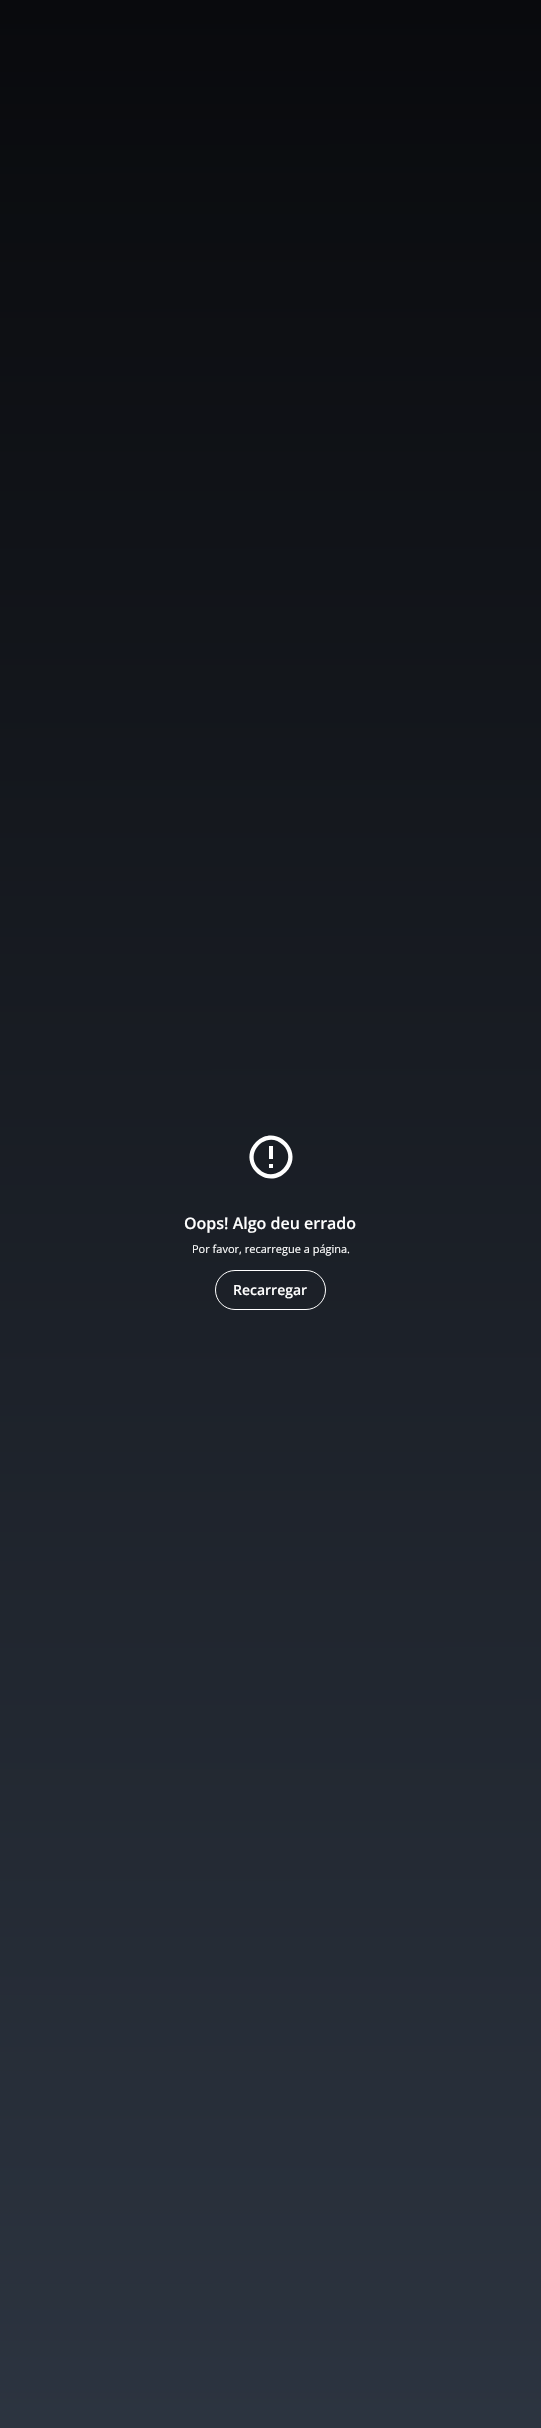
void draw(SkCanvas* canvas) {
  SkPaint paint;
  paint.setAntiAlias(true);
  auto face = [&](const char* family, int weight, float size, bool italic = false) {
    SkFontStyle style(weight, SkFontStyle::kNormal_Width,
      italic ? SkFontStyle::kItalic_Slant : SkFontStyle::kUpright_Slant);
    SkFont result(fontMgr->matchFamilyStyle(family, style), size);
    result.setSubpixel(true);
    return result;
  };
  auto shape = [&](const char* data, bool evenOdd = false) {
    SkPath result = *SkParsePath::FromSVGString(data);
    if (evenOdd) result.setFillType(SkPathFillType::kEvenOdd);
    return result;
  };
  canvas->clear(0xffffffff);
  {
    const SkColor colors[] = {0xff090a0d, 0xff2c3440};
    const float stops[] = {0, 1};
    const SkPoint ends[] = {{270, 0}, {271, 2428}};
    paint.setShader(SkGradientShader::MakeLinear(ends, colors, stops, 2, SkTileMode::kClamp));
    paint.setAlpha(255);
  }
  canvas->drawRect(SkRect::MakeXYWH(0, 0, 541, 2428), paint);
  paint.setShader(nullptr);
  paint.setColor(0xffffffff);
  canvas->drawPath(shape("M259 1169C275 1185 299 1161 283 1145C267 1129 243 1153 259 1169ZM256 1142C276 1122 306 1152 286 1172C266 1192 236 1162 256 1142ZM269 1146H273V1159H269ZM269 1164H273V1168H269Z"), paint);
  paint.setStroke(true);
  paint.setStrokeWidth(1);
  canvas->drawRoundRect(SkRect::MakeXYWH(215.5f, 1270.5f, 110, 39), 19.5f, 19.5f, paint);
  auto f0 = face("Open Sans", 600, 16);
  paint.setStroke(false);
  canvas->drawString("Oops! Algo deu errado", 184, 1229, f0, paint);
  auto f1 = face("Open Sans", 400, 11);
  canvas->drawString("Por favor, recarregue a página.", 192, 1253, f1, paint);
  auto f2 = face("Open Sans", 600, 14);
  canvas->drawString("Recarregar", 233, 1295, f2, paint);
}
